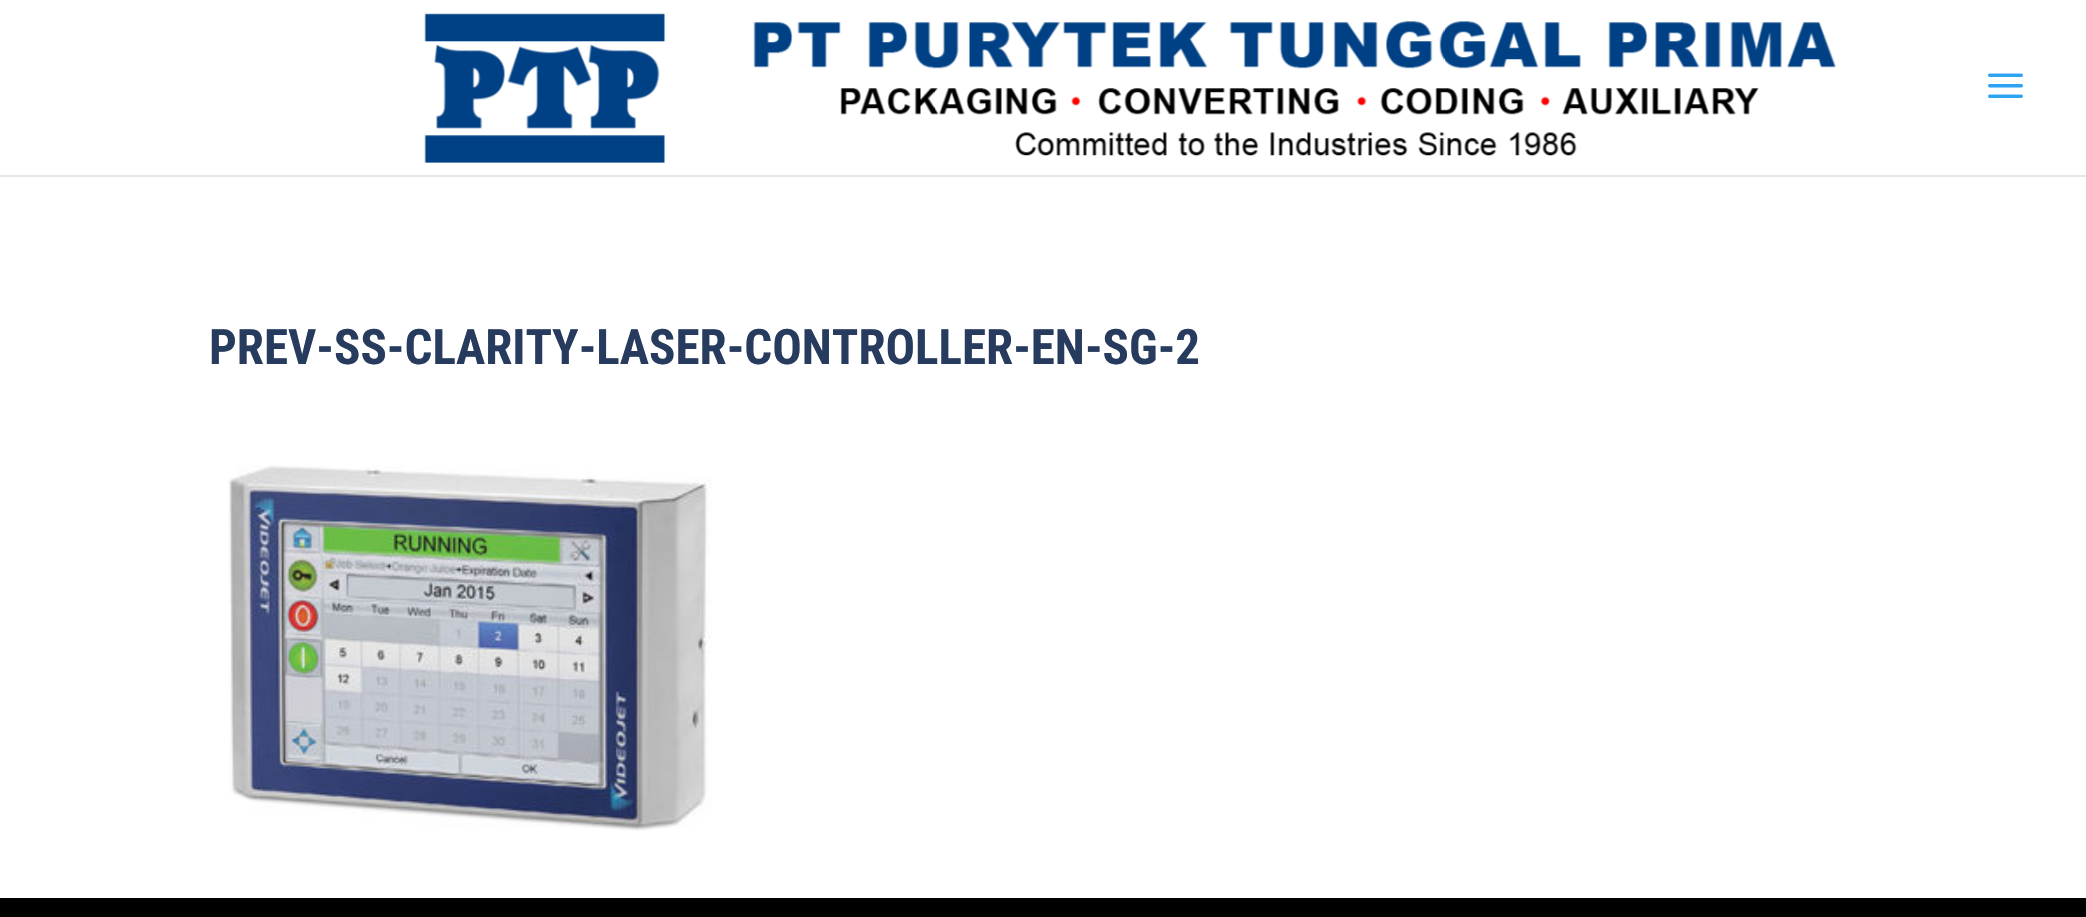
void draw(SkCanvas* canvas) {
  SkPaint paint;
  paint.setAntiAlias(true);
  auto face = [&](const char* family, int weight, float size, bool italic = false) {
    SkFontStyle style(weight, SkFontStyle::kNormal_Width,
      italic ? SkFontStyle::kItalic_Slant : SkFontStyle::kUpright_Slant);
    SkFont result(fontMgr->matchFamilyStyle(family, style), size);
    result.setSubpixel(true);
    return result;
  };
  auto paste = [&](const char* path, float x, float y, float w, float h) {
    auto image = SkImages::DeferredFromEncodedData(SkData::MakeFromFileName(path));
    canvas->drawImageRect(image, SkRect::MakeXYWH(x, y, w, h), SkSamplingOptions());
  };
  canvas->clear(0xffffffff);
  paint.setColor(0xffe6e6e6);
  canvas->drawRect(SkRect::MakeXYWH(0, 175, 2086, 2), paint);
  paste("img/1.png", 424, 13, 1412, 150);
  paste("img/2.png", 1988, 73, 35, 25);
  paste("img/3.png", 228, 465, 484, 366);
  paint.setColor(0xff000000);
  canvas->drawRect(SkRect::MakeXYWH(0, 898, 2086, 19), paint);
  auto f0 = face("Roboto Condensed", 700, 49);
  paint.setColor(0xff263b5d);
  canvas->drawString("PREV-SS-CLARITY-LASER-CONTROLLER-EN-SG-2", 209, 364, f0, paint);
}
